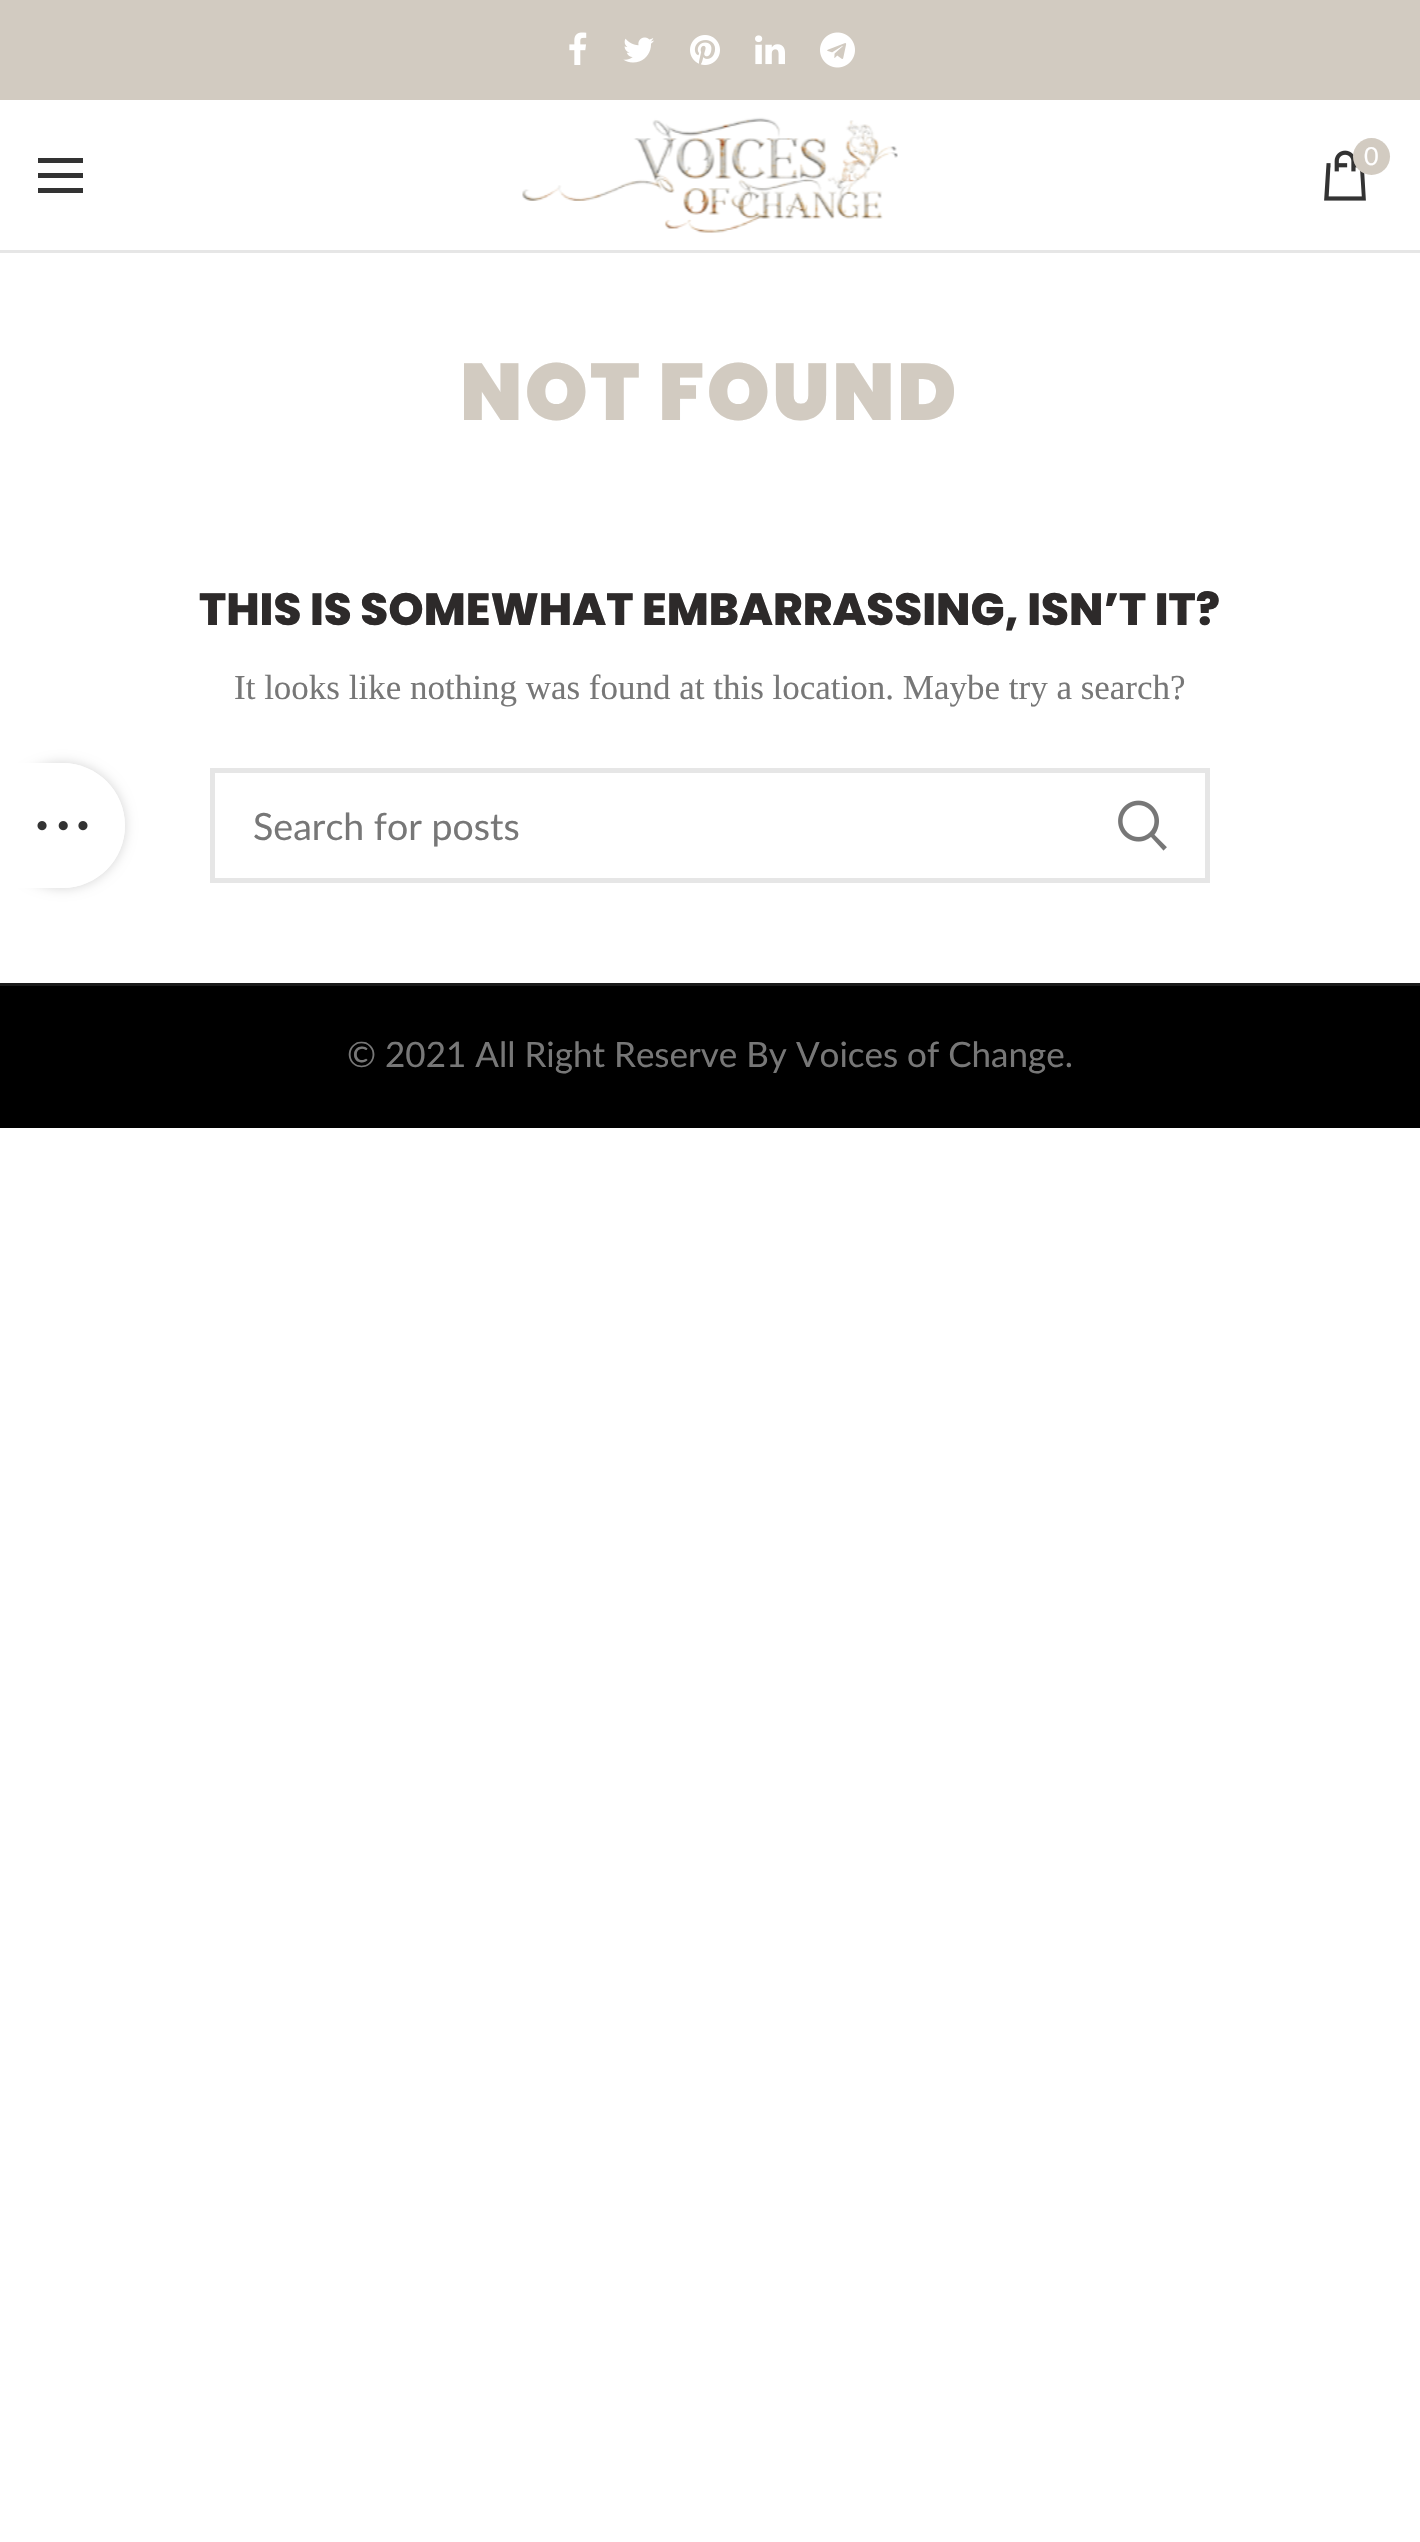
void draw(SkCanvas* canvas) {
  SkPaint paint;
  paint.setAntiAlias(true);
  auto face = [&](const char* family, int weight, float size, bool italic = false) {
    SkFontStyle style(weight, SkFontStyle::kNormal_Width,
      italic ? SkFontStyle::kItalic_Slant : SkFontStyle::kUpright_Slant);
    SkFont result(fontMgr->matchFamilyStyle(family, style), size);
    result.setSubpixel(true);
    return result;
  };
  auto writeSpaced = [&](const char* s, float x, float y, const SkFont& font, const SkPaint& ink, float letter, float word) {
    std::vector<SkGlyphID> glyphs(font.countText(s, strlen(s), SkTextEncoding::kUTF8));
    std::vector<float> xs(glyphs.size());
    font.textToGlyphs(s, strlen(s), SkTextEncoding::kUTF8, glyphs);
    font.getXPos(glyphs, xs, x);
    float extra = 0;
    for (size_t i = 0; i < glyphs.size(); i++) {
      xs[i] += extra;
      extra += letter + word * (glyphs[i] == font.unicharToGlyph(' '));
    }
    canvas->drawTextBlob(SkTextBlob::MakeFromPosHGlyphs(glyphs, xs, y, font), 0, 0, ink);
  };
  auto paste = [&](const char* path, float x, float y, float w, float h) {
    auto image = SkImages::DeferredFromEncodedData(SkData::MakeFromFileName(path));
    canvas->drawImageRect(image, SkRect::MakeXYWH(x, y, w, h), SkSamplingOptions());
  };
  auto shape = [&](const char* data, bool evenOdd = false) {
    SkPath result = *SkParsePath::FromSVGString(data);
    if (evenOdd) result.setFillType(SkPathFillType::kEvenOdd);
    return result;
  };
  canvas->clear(0xffffffff);
  canvas->save();
  canvas->clipPath(shape("M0 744H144V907H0ZM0 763H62.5C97 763 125 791 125 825.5C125 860 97 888 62.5 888H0Z", true), true);
  paint.setColor(0x2b000000);
  paint.setMaskFilter(SkMaskFilter::MakeBlur(kNormal_SkBlurStyle, 6));
  canvas->drawRoundRect(SkRect::MakeXYWH(0, 763, 125, 125), 62.5f, 62.5f, paint);
  paint.setMaskFilter(nullptr);
  canvas->restore();
  paint.setColor(0xe6ffffff);
  canvas->drawPath(shape("M0 763H62.5C97 763 125 791 125 825.5C125 860 97 888 62.5 888H0Z"), paint);
  paste("img/1.png", 37, 821, 51, 10);
  paint.setColor(0xffd2cbc1);
  canvas->drawRect(SkRect::MakeXYWH(0, 0, 1420, 100), paint);
  paste("img/2.png", 569, 32, 18, 33);
  paste("img/3.png", 623, 37, 31, 26);
  paste("img/4.png", 690, 35, 30, 30);
  paste("img/5.png", 755, 35, 30, 30);
  paste("img/6.png", 820, 32, 35, 36);
  paint.setColor(0xffe6e6e6);
  canvas->drawRect(SkRect::MakeXYWH(0, 250, 1420, 3), paint);
  paste("img/7.png", 522, 117, 376, 116);
  paste("img/8.png", 1324, 150, 42, 51);
  paint.setColor(0xffd2cbc1);
  canvas->drawCircle(1371.5f, 156.5f, 18.5f, paint);
  {
    const struct { float x, y, w, h; SkColor color; } items[] = {
      {38, 173, 45, 5, 0xff333333},
      {38, 158, 45, 5, 0xff333333},
      {38, 188, 45, 5, 0xff333333},
    };
    for (auto [x, y, w, h, color] : items) {
      paint.setColor(color);
      canvas->drawRect(SkRect::MakeXYWH(x, y, w, h), paint);
    }
  }
  paint.setStroke(true);
  paint.setStrokeWidth(5);
  paint.setColor(0xffe6e6e6);
  canvas->drawRect(SkRect::MakeXYWH(212.5f, 770.5f, 995, 110), paint);
  paste("img/9.png", 1118, 800, 49, 51);
  paint.setStroke(false);
  paint.setColor(0xff000000);
  canvas->drawRect(SkRect::MakeXYWH(0, 986, 1420, 142), paint);
  paint.setColor(0xff1a1a1a);
  canvas->drawRect(SkRect::MakeXYWH(0, 983, 1420, 3), paint);
  auto f0 = face("Lato", 400, 25);
  paint.setColor(0xffffffff);
  canvas->drawString("0", 1364, 165, f0, paint);
  auto f1 = face("Poppins", 900, 80);
  paint.setColor(0xffd2cbc1);
  writeSpaced("NOT FOUND", 460, 420, f1, paint, 2.5f, 0);
  auto f2 = face("Poppins", 800, 45);
  paint.setColor(0xff2d2a2a);
  canvas->drawString("THIS IS SOMEWHAT EMBARRASSING, ISN’T IT?", 199, 625, f2, paint);
  auto f3 = face("Liberation Serif", 400, 35);
  paint.setColor(0xff777777);
  canvas->drawString("It looks like nothing was found at this location. Maybe try a search?", 234, 699, f3, paint);
  auto f4 = face("Lato", 400, 37.5f);
  canvas->drawString("Search for posts", 253, 840, f4, paint);
  auto f5 = face("Lato", 400, 35);
  canvas->drawString("© 2021 All Right Reserve By Voices of Change.", 347, 1067, f5, paint);
}
